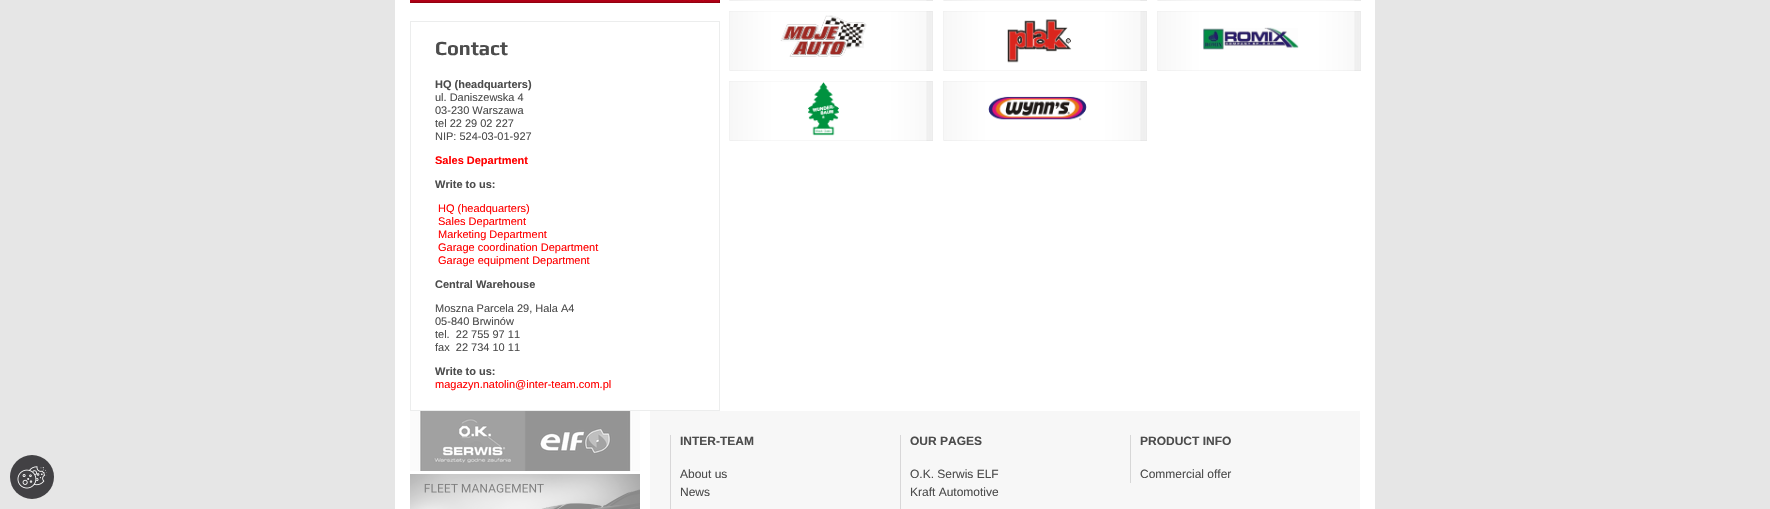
void draw(SkCanvas* canvas) {
  SkPaint paint;
  paint.setAntiAlias(true);
  auto face = [&](const char* family, int weight, float size, bool italic = false) {
    SkFontStyle style(weight, SkFontStyle::kNormal_Width,
      italic ? SkFontStyle::kItalic_Slant : SkFontStyle::kUpright_Slant);
    SkFont result(fontMgr->matchFamilyStyle(family, style), size);
    result.setSubpixel(true);
    return result;
  };
  auto paste = [&](const char* path, float x, float y, float w, float h) {
    auto image = SkImages::DeferredFromEncodedData(SkData::MakeFromFileName(path));
    canvas->drawImageRect(image, SkRect::MakeXYWH(x, y, w, h), SkSamplingOptions());
  };
  canvas->clear(0xffe6e6e6);
  paint.setColor(0xff424144);
  canvas->drawCircle(32, 477, 22, paint);
  paste("img/1.png", 17, 466, 30, 23);
  paint.setColor(0xffffffff);
  canvas->drawRect(SkRect::MakeXYWH(395, 0, 980, 509), paint);
  paste("img/2.png", 410, 0, 310, 3);
  paint.setStroke(true);
  paint.setStrokeWidth(1);
  paint.setColor(0xffeceded);
  canvas->drawRect(SkRect::MakeXYWH(410.5f, 21.5f, 309, 389), paint);
  paste("img/3.png", 729, 0, 204, 1);
  paste("img/3.png", 943, 0, 204, 1);
  paste("img/3.png", 1157, 0, 204, 1);
  paste("img/4.png", 729, 11, 204, 60);
  paste("img/5.png", 780, 15, 87, 42);
  paste("img/4.png", 943, 11, 204, 60);
  paste("img/6.png", 1007, 19, 65, 44);
  paste("img/4.png", 1157, 11, 204, 60);
  paste("img/7.png", 1203, 27, 96, 23);
  paste("img/4.png", 729, 81, 204, 60);
  paste("img/8.png", 808, 82, 31, 54);
  paste("img/4.png", 943, 81, 204, 60);
  paste("img/9.png", 988, 96, 99, 25);
  paste("img/10.png", 410, 411, 230, 60);
  paste("img/11.png", 410, 474, 230, 35);
  paint.setStroke(false);
  {
    const struct { float x, y, w, h; SkColor color; } items[] = {
      {650, 411, 710, 98, 0xfff7f7f7},
      {670, 435, 1, 74, 0xffd8d7d8},
      {900, 435, 1, 74, 0xffd8d7d8},
      {1130, 435, 1, 48, 0xffd7d7d7},
    };
    for (auto [x, y, w, h, color] : items) {
      paint.setColor(color);
      canvas->drawRect(SkRect::MakeXYWH(x, y, w, h), paint);
    }
  }
  auto f0 = face("Play", 700, 20);
  paint.setColor(0xff4c4c4c);
  canvas->drawString("Contact", 435, 55, f0, paint);
  auto f1 = face("Liberation Sans", 700, 11);
  canvas->drawString("HQ (headquarters)", 435, 88, f1, paint);
  auto f2 = face("Liberation Sans", 400, 11);
  {
    const struct { const char* s; float x, y; } items[] = {
      {"ul. Daniszewska 4", 435, 101},
      {"03-230 Warszawa", 435, 114},
      {"tel 22 29 02 227", 435, 127},
      {"NIP: 524-03-01-927", 435, 140},
    };
    for (auto [s, x, y] : items) {
      canvas->drawString(s, x, y, f2, paint);
    }
  }
  paint.setColor(0xffff0000);
  canvas->drawString("Sales Department", 435, 164, f1, paint);
  paint.setColor(0xff4c4c4c);
  canvas->drawString("Write to us:", 435, 188, f1, paint);
  paint.setColor(0xffff0000);
  {
    const struct { const char* s; float x, y; } items[] = {
      {"HQ (headquarters)", 438, 212},
      {"Sales Department", 438, 225},
      {"Marketing Department", 438, 238},
      {"Garage coordination Department", 438, 251},
      {"Garage equipment Department", 438, 264},
    };
    for (auto [s, x, y] : items) {
      canvas->drawString(s, x, y, f2, paint);
    }
  }
  paint.setColor(0xff4c4c4c);
  canvas->drawString("Central Warehouse", 435, 288, f1, paint);
  {
    const struct { const char* s; float x, y; } items[] = {
      {"Moszna Parcela 29, Hala A4", 435, 312},
      {"05-840 Brwinów", 435, 325},
      {"tel.  22 755 97 11", 435, 338},
      {"fax  22 734 10 11", 435, 351},
    };
    for (auto [s, x, y] : items) {
      canvas->drawString(s, x, y, f2, paint);
    }
  }
  canvas->drawString("Write to us:", 435, 375, f1, paint);
  paint.setColor(0xffff0000);
  canvas->drawString("magazyn.natolin@inter-team.com.pl", 435, 388, f2, paint);
  auto f3 = face("Liberation Sans", 700, 12);
  paint.setColor(0xff4c4c4c);
  canvas->drawString("INTER-TEAM", 680, 445, f3, paint);
  auto f4 = face("Liberation Sans", 400, 12);
  canvas->drawString("About us", 680, 478, f4, paint);
  canvas->drawString("News", 680, 496, f4, paint);
  canvas->drawString("OUR PAGES", 910, 445, f3, paint);
  canvas->drawString("O.K. Serwis ELF", 910, 478, f4, paint);
  canvas->drawString("Kraft Automotive", 910, 496, f4, paint);
  canvas->drawString("PRODUCT INFO", 1140, 445, f3, paint);
  canvas->drawString("Commercial offer", 1140, 478, f4, paint);
}
